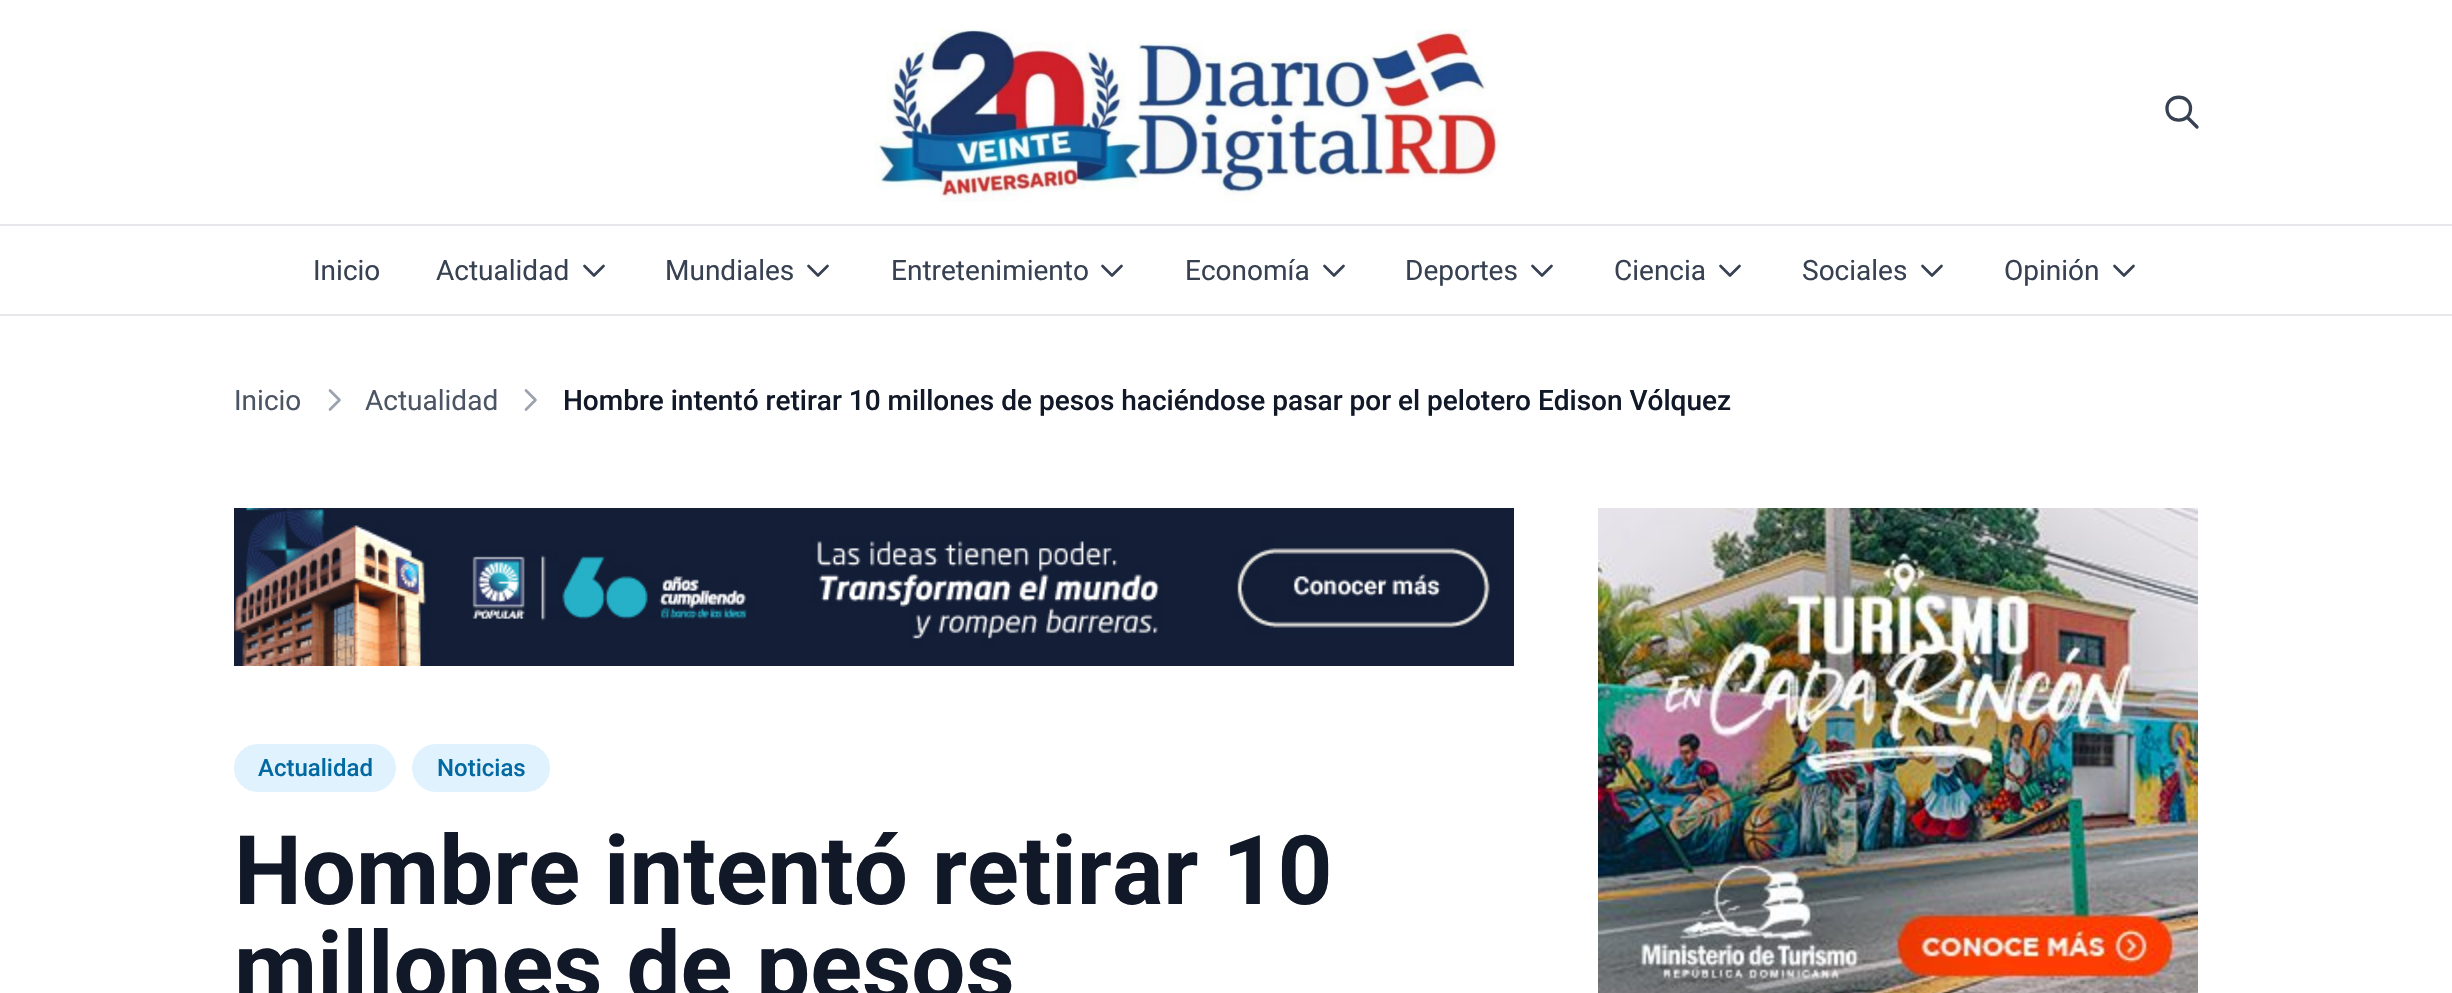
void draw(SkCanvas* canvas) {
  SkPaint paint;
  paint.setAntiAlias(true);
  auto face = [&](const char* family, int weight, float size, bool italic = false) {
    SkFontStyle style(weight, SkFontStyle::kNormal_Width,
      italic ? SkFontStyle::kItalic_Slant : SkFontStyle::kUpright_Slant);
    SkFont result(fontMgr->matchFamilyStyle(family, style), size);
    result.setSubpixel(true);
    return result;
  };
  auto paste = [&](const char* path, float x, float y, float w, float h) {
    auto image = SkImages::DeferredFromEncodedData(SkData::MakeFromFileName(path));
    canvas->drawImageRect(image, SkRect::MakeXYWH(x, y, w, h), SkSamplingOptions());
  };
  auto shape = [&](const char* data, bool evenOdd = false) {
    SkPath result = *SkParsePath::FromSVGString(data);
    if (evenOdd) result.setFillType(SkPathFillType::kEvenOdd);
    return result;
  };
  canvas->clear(0xffffffff);
  paint.setColor(0xffe5e7eb);
  canvas->drawRect(SkRect::MakeXYWH(0, 224, 2452, 2), paint);
  paste("img/1.png", 874, 29, 628, 173);
  paint.setStroke(true);
  paint.setStrokeWidth(3.3f);
  paint.setStrokeCap(SkPaint::kRound_Cap);
  paint.setStrokeJoin(SkPaint::kRound_Join);
  paint.setColor(0xff374151);
  canvas->drawPath(shape("M2197 127L2187 117M2190.5 108.5C2190.5 124 2167 124 2167 108.5C2167 93.5 2190.5 93.5 2190.5 108.5Z"), paint);
  paint.setStroke(false);
  paint.setColor(0xffe5e7eb);
  canvas->drawRect(SkRect::MakeXYWH(0, 314, 2452, 2), paint);
  paint.setStroke(true);
  paint.setStrokeWidth(2.7f);
  paint.setColor(0xff374151);
  canvas->drawPath(shape("M603.5 266L594 275.5L584.5 266"), paint);
  canvas->drawPath(shape("M827.5 266L818 275.5L808.5 266"), paint);
  canvas->drawPath(shape("M1121.5 266L1112 275.5L1102.5 266"), paint);
  canvas->drawPath(shape("M1343.5 266L1334 275.5L1324.5 266"), paint);
  canvas->drawPath(shape("M1551.5 266L1542 275.5L1532.5 266"), paint);
  canvas->drawPath(shape("M1739.5 266L1730 275.5L1720.5 266"), paint);
  canvas->drawPath(shape("M1941.5 266L1932 275.5L1922.5 266"), paint);
  canvas->drawPath(shape("M2133.5 266L2124 275.5L2114.5 266"), paint);
  paint.setColor(0xff9ca3af);
  canvas->drawPath(shape("M330 390.5L339.5 400L330 409.5"), paint);
  canvas->drawPath(shape("M526 390.5L535.5 400L526 409.5"), paint);
  paste("img/2.png", 234, 508, 1280, 158);
  paint.setStroke(false);
  paint.setColor(0xffe0f2fe);
  canvas->drawRoundRect(SkRect::MakeXYWH(234, 744, 162, 48), 24, 24, paint);
  canvas->drawRoundRect(SkRect::MakeXYWH(412, 744, 138, 48), 24, 24, paint);
  paste("img/3.png", 1598, 508, 600, 485);
  auto f0 = face("Roboto", 400, 28);
  paint.setColor(0xff374151);
  {
    const struct { const char* s; float x, y; } items[] = {
      {"Inicio", 313, 280},
      {"Actualidad", 436, 280},
      {"Mundiales", 665, 280},
      {"Entretenimiento", 891, 280},
      {"Economía", 1185, 280},
      {"Deportes", 1405, 280},
      {"Ciencia", 1614, 280},
      {"Sociales", 1802, 280},
      {"Opinión", 2004, 280},
    };
    for (auto [s, x, y] : items) {
      canvas->drawString(s, x, y, f0, paint);
    }
  }
  paint.setColor(0xff4b5563);
  canvas->drawString("Inicio", 234, 410, f0, paint);
  canvas->drawString("Actualidad", 365, 410, f0, paint);
  auto f1 = face("Roboto", 500, 28);
  paint.setColor(0xff111827);
  canvas->drawString("Hombre intentó retirar 10 millones de pesos haciéndose pasar por el pelotero Edison Vólquez", 563, 410, f1, paint);
  auto f2 = face("Roboto", 500, 24);
  paint.setColor(0xff0369a1);
  canvas->drawString("Actualidad", 258, 776, f2, paint);
  canvas->drawString("Noticias", 437, 776, f2, paint);
  auto f3 = face("Roboto", 700, 96);
  paint.setColor(0xff111827);
  canvas->drawString("Hombre intentó retirar 10", 234, 904, f3, paint);
  canvas->drawString("millones de pesos", 234, 1000, f3, paint);
}
